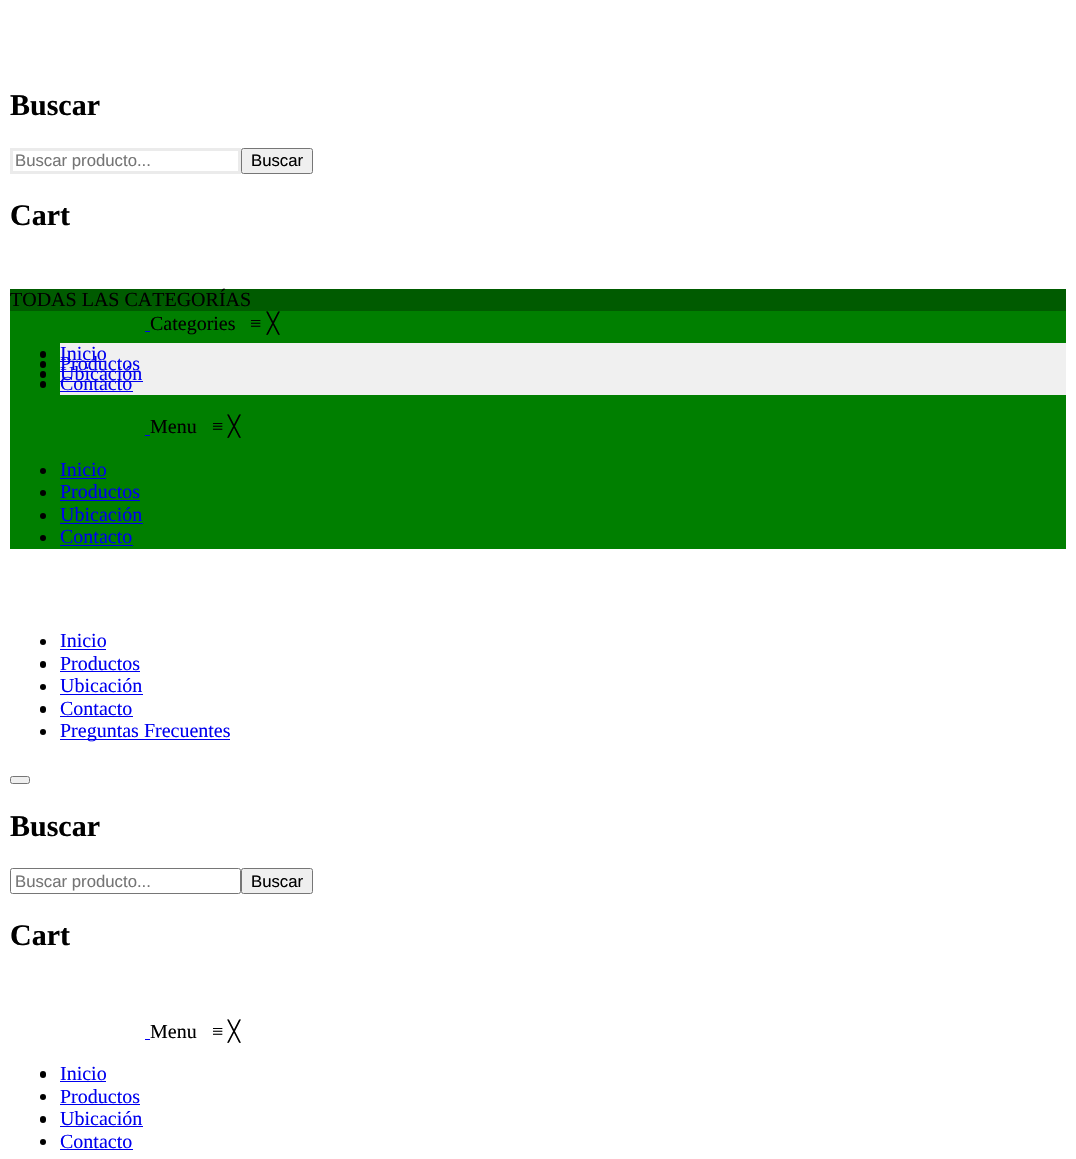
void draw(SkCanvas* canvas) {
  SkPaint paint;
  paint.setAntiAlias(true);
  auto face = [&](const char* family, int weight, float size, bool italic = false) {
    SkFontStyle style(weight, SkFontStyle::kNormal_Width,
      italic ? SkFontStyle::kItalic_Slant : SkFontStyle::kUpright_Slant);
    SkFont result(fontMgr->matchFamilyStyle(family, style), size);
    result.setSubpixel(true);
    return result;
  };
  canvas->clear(0xffffffff);
  paint.setStroke(true);
  paint.setStrokeWidth(3);
  paint.setColor(0xffebebeb);
  canvas->drawRect(SkRect::MakeXYWH(11.5f, 149.5f, 228, 23), paint);
  paint.setStroke(false);
  paint.setColor(0xffefefef);
  canvas->drawRoundRect(SkRect::MakeXYWH(241.5f, 148.5f, 71, 25), 2, 2, paint);
  paint.setStroke(true);
  paint.setStrokeWidth(1);
  paint.setColor(0xff767676);
  canvas->drawRoundRect(SkRect::MakeXYWH(241.5f, 148.5f, 71, 25), 2, 2, paint);
  paint.setStroke(false);
  {
    const struct { float x, y, w, h; SkColor color; } items[] = {
      {10, 311, 1056, 238, 0xff007f00},
      {10, 289, 1056, 22, 0xff005b00},
      {145, 331, 5, 1, 0xff0000ee},
      {60, 343, 1006, 52, 0xfff0f0f0},
    };
    for (auto [x, y, w, h, color] : items) {
      paint.setColor(color);
      canvas->drawRect(SkRect::MakeXYWH(x, y, w, h), paint);
    }
  }
  paint.setColor(0xff000000);
  canvas->drawRoundRect(SkRect::MakeXYWH(40, 351, 6, 7), 3, 3, paint);
  paint.setColor(0xff0000ee);
  canvas->drawRect(SkRect::MakeXYWH(60, 361, 46, 1), paint);
  paint.setColor(0xff000000);
  canvas->drawRoundRect(SkRect::MakeXYWH(40, 361, 6, 7), 3, 3, paint);
  paint.setColor(0xff0000ee);
  canvas->drawRect(SkRect::MakeXYWH(60, 371, 80, 1), paint);
  paint.setColor(0xff000000);
  canvas->drawRoundRect(SkRect::MakeXYWH(40, 371, 6, 7), 3, 3, paint);
  paint.setColor(0xff0000ee);
  canvas->drawRect(SkRect::MakeXYWH(60, 381, 83, 1), paint);
  paint.setColor(0xff000000);
  canvas->drawRoundRect(SkRect::MakeXYWH(40, 381, 6, 7), 3, 3, paint);
  paint.setColor(0xff0000ee);
  canvas->drawRect(SkRect::MakeXYWH(60, 391, 73, 1), paint);
  canvas->drawRect(SkRect::MakeXYWH(145, 435, 5, 1), paint);
  paint.setColor(0xff000000);
  canvas->drawCircle(43, 471, 3, paint);
  paint.setColor(0xff0000ee);
  canvas->drawRect(SkRect::MakeXYWH(60, 478, 46, 1), paint);
  paint.setColor(0xff000000);
  canvas->drawCircle(43, 493, 3, paint);
  paint.setColor(0xff0000ee);
  canvas->drawRect(SkRect::MakeXYWH(60, 500, 80, 1), paint);
  paint.setColor(0xff000000);
  canvas->drawCircle(43, 516, 3, paint);
  paint.setColor(0xff0000ee);
  canvas->drawRect(SkRect::MakeXYWH(60, 523, 83, 1), paint);
  paint.setColor(0xff000000);
  canvas->drawCircle(43, 538, 3, paint);
  paint.setColor(0xff0000ee);
  canvas->drawRect(SkRect::MakeXYWH(60, 545, 73, 1), paint);
  paint.setColor(0xff000000);
  canvas->drawCircle(43, 642, 3, paint);
  paint.setColor(0xff0000ee);
  canvas->drawRect(SkRect::MakeXYWH(60, 649, 46, 1), paint);
  paint.setColor(0xff000000);
  canvas->drawRoundRect(SkRect::MakeXYWH(40, 661, 6, 7), 3, 3, paint);
  paint.setColor(0xff0000ee);
  canvas->drawRect(SkRect::MakeXYWH(60, 671, 80, 1), paint);
  paint.setColor(0xff000000);
  canvas->drawCircle(43, 687, 3, paint);
  paint.setColor(0xff0000ee);
  canvas->drawRect(SkRect::MakeXYWH(60, 694, 83, 1), paint);
  paint.setColor(0xff000000);
  canvas->drawRoundRect(SkRect::MakeXYWH(40, 706, 6, 7), 3, 3, paint);
  paint.setColor(0xff0000ee);
  canvas->drawRect(SkRect::MakeXYWH(60, 716, 73, 1), paint);
  paint.setColor(0xff000000);
  canvas->drawCircle(43, 732, 3, paint);
  paint.setColor(0xff0000ee);
  canvas->drawRect(SkRect::MakeXYWH(60, 739, 170, 1), paint);
  paint.setColor(0xffefefef);
  canvas->drawRoundRect(SkRect::MakeXYWH(10.5f, 776.5f, 19, 7), 2, 2, paint);
  paint.setStroke(true);
  paint.setColor(0xff767676);
  canvas->drawRoundRect(SkRect::MakeXYWH(10.5f, 776.5f, 19, 7), 2, 2, paint);
  canvas->drawRoundRect(SkRect::MakeXYWH(10.5f, 868.5f, 230, 25), 2, 2, paint);
  paint.setStroke(false);
  paint.setColor(0xffefefef);
  canvas->drawRoundRect(SkRect::MakeXYWH(241.5f, 868.5f, 71, 25), 2, 2, paint);
  paint.setStroke(true);
  paint.setColor(0xff767676);
  canvas->drawRoundRect(SkRect::MakeXYWH(241.5f, 868.5f, 71, 25), 2, 2, paint);
  paint.setStroke(false);
  paint.setColor(0xff0000ee);
  canvas->drawRect(SkRect::MakeXYWH(145, 1039, 5, 1), paint);
  paint.setColor(0xff000000);
  canvas->drawRoundRect(SkRect::MakeXYWH(40, 1071, 6, 7), 3, 3, paint);
  paint.setColor(0xff0000ee);
  canvas->drawRect(SkRect::MakeXYWH(60, 1081, 46, 1), paint);
  paint.setColor(0xff000000);
  canvas->drawCircle(43, 1097, 3, paint);
  paint.setColor(0xff0000ee);
  canvas->drawRect(SkRect::MakeXYWH(60, 1104, 80, 1), paint);
  paint.setColor(0xff000000);
  canvas->drawRoundRect(SkRect::MakeXYWH(40, 1116, 6, 7), 3, 3, paint);
  paint.setColor(0xff0000ee);
  canvas->drawRect(SkRect::MakeXYWH(60, 1126, 83, 1), paint);
  paint.setColor(0xff000000);
  canvas->drawCircle(43, 1142, 3, paint);
  paint.setColor(0xff0000ee);
  canvas->drawRect(SkRect::MakeXYWH(60, 1149, 73, 1), paint);
  auto f0 = face("Liberation Serif", 700, 30);
  paint.setColor(0xff000000);
  canvas->drawString("Buscar", 10, 115, f0, paint);
  auto f1 = face("Liberation Sans", 400, 16.75f);
  paint.setColor(0xff757575);
  canvas->drawString("Buscar producto...", 15, 166, f1, paint);
  paint.setColor(0xff000000);
  canvas->drawString("Buscar", 251, 166, f1, paint);
  canvas->drawString("Cart", 10, 225, f0, paint);
  auto f2 = face("Liberation Serif", 400, 20);
  {
    const struct { const char* s; float x, y; } items[] = {
      {"TODAS LAS CATEGORÍAS", 10, 306},
      {"Categories", 150, 330},
      {"≡", 250, 330},
    };
    for (auto [s, x, y] : items) {
      canvas->drawString(s, x, y, f2, paint);
    }
  }
  auto f3 = face("DejaVu Sans", 400, 20);
  canvas->drawString("╳", 267, 330, f3, paint);
  paint.setColor(0xff0000ee);
  {
    const struct { const char* s; float x, y; } items[] = {
      {"Inicio", 60, 360},
      {"Productos", 60, 370},
      {"Ubicación", 60, 380},
      {"Contacto", 60, 390},
    };
    for (auto [s, x, y] : items) {
      canvas->drawString(s, x, y, f2, paint);
    }
  }
  paint.setColor(0xff000000);
  canvas->drawString("Menu", 150, 433, f2, paint);
  canvas->drawString("≡", 212, 433, f2, paint);
  canvas->drawString("╳", 228, 433, f3, paint);
  paint.setColor(0xff0000ee);
  {
    const struct { const char* s; float x, y; } items[] = {
      {"Inicio", 60, 476},
      {"Productos", 60, 498},
      {"Ubicación", 60, 521},
      {"Contacto", 60, 543},
      {"Inicio", 60, 647},
      {"Productos", 60, 670},
      {"Ubicación", 60, 692},
      {"Contacto", 60, 715},
      {"Preguntas Frecuentes", 60, 737},
    };
    for (auto [s, x, y] : items) {
      canvas->drawString(s, x, y, f2, paint);
    }
  }
  paint.setColor(0xff000000);
  canvas->drawString("Buscar", 10, 836, f0, paint);
  paint.setColor(0xff757575);
  canvas->drawString("Buscar producto...", 15, 887, f1, paint);
  paint.setColor(0xff000000);
  canvas->drawString("Buscar", 251, 887, f1, paint);
  canvas->drawString("Cart", 10, 945, f0, paint);
  canvas->drawString("Menu", 150, 1038, f2, paint);
  canvas->drawString("≡", 212, 1038, f2, paint);
  canvas->drawString("╳", 228, 1038, f3, paint);
  paint.setColor(0xff0000ee);
  {
    const struct { const char* s; float x, y; } items[] = {
      {"Inicio", 60, 1080},
      {"Productos", 60, 1103},
      {"Ubicación", 60, 1125},
      {"Contacto", 60, 1148},
    };
    for (auto [s, x, y] : items) {
      canvas->drawString(s, x, y, f2, paint);
    }
  }
}
